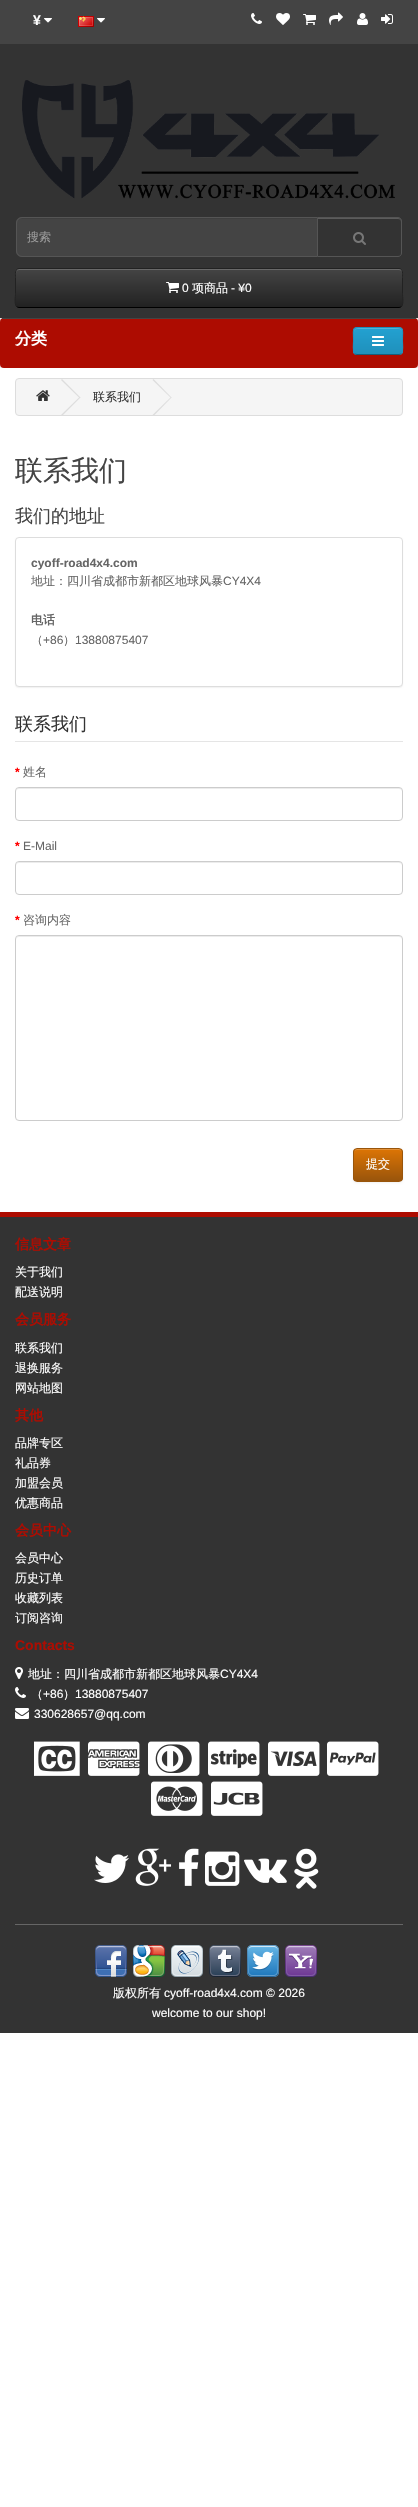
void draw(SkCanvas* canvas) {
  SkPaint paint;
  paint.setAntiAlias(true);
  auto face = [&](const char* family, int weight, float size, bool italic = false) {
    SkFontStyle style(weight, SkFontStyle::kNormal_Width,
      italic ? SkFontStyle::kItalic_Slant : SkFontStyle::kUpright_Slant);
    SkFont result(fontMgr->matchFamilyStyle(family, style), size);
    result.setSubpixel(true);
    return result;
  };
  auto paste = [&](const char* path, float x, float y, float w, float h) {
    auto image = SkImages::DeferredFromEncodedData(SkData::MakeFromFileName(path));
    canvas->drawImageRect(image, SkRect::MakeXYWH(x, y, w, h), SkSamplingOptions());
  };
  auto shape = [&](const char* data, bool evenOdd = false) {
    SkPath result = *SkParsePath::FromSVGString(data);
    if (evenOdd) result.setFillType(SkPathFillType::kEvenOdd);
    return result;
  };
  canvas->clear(0xffffffff);
  paint.setColor(0xff444444);
  canvas->drawRect(SkRect::MakeXYWH(0, 0, 418, 44), paint);
  paste("img/1.png", 44, 18, 8, 5);
  paste("img/2.png", 78, 16, 16, 11);
  paste("img/1.png", 97, 18, 8, 5);
  paste("img/3.png", 251, 13, 11, 11);
  paste("img/4.png", 276, 13, 14, 12);
  paste("img/5.png", 303, 14, 13, 11);
  paste("img/6.png", 329, 12, 14, 13);
  paste("img/7.png", 357, 13, 11, 12);
  paste("img/8.png", 381, 14, 12, 10);
  paint.setColor(0xff333333);
  canvas->drawRect(SkRect::MakeXYWH(0, 44, 418, 274), paint);
  paste("img/9.png", 22, 80, 373, 119);
  paint.setColor(0xff444444);
  canvas->drawPath(shape("M22 217H318V257H22C18.5 257 16 254.5 16 251V223C16 219.5 18.5 217 22 217Z"), paint);
  paint.setColor(0xff3f3f3f);
  canvas->drawPath(shape("M22 219H317V218H22C19 218 17 221 17 224C17 221 19 219 22 219Z"), paint);
  paint.setStroke(true);
  paint.setStrokeWidth(1);
  paint.setColor(0xff555555);
  canvas->drawPath(shape("M22 217.5H317.5V256.5H22C19 256.5 16.5 254 16.5 251V223C16.5 220 19 217.5 22 217.5Z"), paint);
  paint.setStroke(false);
  paint.setColor(0xff333333);
  canvas->drawPath(shape("M317 217H398C400 217 402 219 402 221V253C402 255 400 257 398 257H317Z"), paint);
  paint.setColor(0xff5c5c5c);
  canvas->drawPath(shape("M318 219H398C400 219 401 220 401 222V221C401 219 400 218 398 218H318Z"), paint);
  paint.setStroke(true);
  paint.setColor(0xff555555);
  canvas->drawPath(shape("M317.5 217.5H398C400 217.5 401.5 219 401.5 221V253C401.5 255 400 256.5 398 256.5H317.5Z"), paint);
  paste("img/10.png", 353, 232, 13, 13);
  canvas->save();
  canvas->clipPath(shape("M19 268H399C401 268 403 270 403 272V304C403 306 401 308 399 308H19C17 308 15 306 15 304V272C15 270 17 268 19 268Z"), true);
  paint.setStroke(false);
  {
    const SkColor colors[] = {0xff444444, 0xff222222};
    const float stops[] = {0, 1};
    const SkPoint ends[] = {{209, 269}, {209, 307}};
    paint.setShader(SkGradientShader::MakeLinear(ends, colors, stops, 2, SkTileMode::kClamp));
    paint.setAlpha(255);
  }
  canvas->drawRect(SkRect::MakeXYWH(15, 269, 388, 38), paint);
  canvas->restore();
  paint.setShader(nullptr);
  paint.setColor(0xff696969);
  canvas->drawPath(shape("M19 270H399C401 270 402 271 402 273C402 271 401 269 399 269H19L17 270L16 273C16 271 17 270 19 270Z"), paint);
  paint.setStroke(true);
  paint.setColor(0xff000000);
  canvas->drawPath(shape("M401.5 306.5C401 307 400 307.5 399 307.5H19C18 307.5 17 307 16.5 306.5"), paint);
  paint.setColor(0xff222222);
  canvas->drawPath(shape("M16.5 306.5C14 304 15.5 296 15.5 293.5V277.5C15.5 274.5 14.5 268.5 19 268.5H399C403.5 268.5 402.5 274.5 402.5 277.5V293.5C402.5 296 404 304 401.5 306.5"), paint);
  paste("img/11.png", 166, 282, 13, 11);
  paint.setStroke(false);
  paint.setColor(0xffeeeeee);
  canvas->drawRect(SkRect::MakeXYWH(0, 318, 418, 50), paint);
  paint.setColor(0xffad0c01);
  canvas->drawRoundRect(SkRect::MakeXYWH(0, 318, 418, 50), 4, 4, paint);
  paint.setColor(0xff444444);
  canvas->drawRect(SkRect::MakeXYWH(2, 318, 414, 1), paint);
  paint.setColor(0xff229ac8);
  canvas->drawRoundRect(SkRect::MakeXYWH(353, 327, 50, 28), 4, 4, paint);
  canvas->save();
  canvas->clipPath(shape("M357 327H399C401 327 403 329 403 331V351C403 353 401 355 399 355H357C355 355 353 353 353 351V331C353 329 355 327 357 327Z"), true);
  {
    const SkColor colors[] = {0xff23a1d1, 0xff1f90bb};
    const float stops[] = {0, 1};
    const SkPoint ends[] = {{378, 328}, {378, 354}};
    paint.setShader(SkGradientShader::MakeLinear(ends, colors, stops, 2, SkTileMode::kClamp));
    paint.setAlpha(255);
  }
  canvas->drawRect(SkRect::MakeXYWH(353, 328, 50, 26), paint);
  canvas->restore();
  paint.setShader(nullptr);
  paint.setColor(0xff4fb4da);
  canvas->drawPath(shape("M357 329H399C401 329 402 330 402 332C402 326 396 328 392 328H364C360 328 354 326 354 332C354 330 355 329 357 329Z"), paint);
  paint.setStroke(true);
  paint.setColor(0xff145e7a);
  canvas->drawPath(shape("M401.5 353.5C401 354 400 354.5 399 354.5H357C356 354.5 355 354 354.5 353.5"), paint);
  paint.setColor(0xff1f90bb);
  canvas->drawPath(shape("M354.5 353.5C352.5 351 353.5 343.5 353.5 341C353.5 328 351 327.5 364 327.5H392C405 327.5 402.5 328 402.5 341C402.5 343.5 403.5 351 401.5 353.5"), paint);
  paste("img/12.png", 372, 336, 12, 10);
  paint.setStroke(false);
  paint.setColor(0xfff5f5f5);
  canvas->drawRoundRect(SkRect::MakeXYWH(15.5f, 378.5f, 387, 37), 3.5f, 3.5f, paint);
  paint.setStroke(true);
  paint.setColor(0xffdddddd);
  canvas->drawRoundRect(SkRect::MakeXYWH(15.5f, 378.5f, 387, 37), 3.5f, 3.5f, paint);
  paste("img/13.png", 36, 390, 14, 11);
  paint.setStroke(false);
  canvas->drawPath(shape("M61 380L62 379L80.5 397.5L79.5 398Z"), paint);
  canvas->drawPath(shape("M61 415L79.5 397L80.5 397.5L62 416Z"), paint);
  canvas->drawPath(shape("M152.5 380L153.5 379L171.5 397.5L171 398Z"), paint);
  canvas->drawPath(shape("M152.5 415L171 397L171.5 397.5L153.5 416Z"), paint);
  paint.setColor(0x0d000000);
  paint.setMaskFilter(SkMaskFilter::MakeBlur(kNormal_SkBlurStyle, 0.5f));
  canvas->drawRoundRect(SkRect::MakeXYWH(15, 538, 388, 150), 4, 4, paint);
  paint.setMaskFilter(nullptr);
  paint.setColor(0xffffffff);
  canvas->drawRoundRect(SkRect::MakeXYWH(15.5f, 537.5f, 387, 149), 3.5f, 3.5f, paint);
  paint.setStroke(true);
  paint.setColor(0xffdddddd);
  canvas->drawRoundRect(SkRect::MakeXYWH(15.5f, 537.5f, 387, 149), 3.5f, 3.5f, paint);
  paint.setStroke(false);
  paint.setColor(0xffe5e5e5);
  canvas->drawRect(SkRect::MakeXYWH(15, 741, 388, 1), paint);
  paint.setColor(0xffececec);
  canvas->drawPath(shape("M19 789H399C401 789 402 790 402 792C402 790 401 788 399 788H19L17 789L16 792C16 790 17 789 19 789Z"), paint);
  paint.setStroke(true);
  paint.setColor(0xffcccccc);
  canvas->drawRoundRect(SkRect::MakeXYWH(15.5f, 787.5f, 387, 33), 3.5f, 3.5f, paint);
  paint.setStroke(false);
  paint.setColor(0xffececec);
  canvas->drawPath(shape("M19 863H399C401 863 402 864 402 866C402 864 401 862 399 862H19L17 863L16 866C16 864 17 863 19 863Z"), paint);
  paint.setStroke(true);
  paint.setColor(0xffcccccc);
  canvas->drawRoundRect(SkRect::MakeXYWH(15.5f, 861.5f, 387, 33), 3.5f, 3.5f, paint);
  paint.setStroke(false);
  paint.setColor(0xffececec);
  canvas->drawPath(shape("M19 937H399C401 937 402 938 402 940C402 938 401 936 399 936H19L17 937L16 940C16 938 17 937 19 937Z"), paint);
  paint.setStroke(true);
  paint.setColor(0xffcccccc);
  canvas->drawRoundRect(SkRect::MakeXYWH(15.5f, 935.5f, 387, 185), 3.5f, 3.5f, paint);
  paint.setStroke(false);
  paint.setColor(0x0d000000);
  paint.setMaskFilter(SkMaskFilter::MakeBlur(kNormal_SkBlurStyle, 1));
  canvas->drawRoundRect(SkRect::MakeXYWH(353, 1149, 50, 34), 4, 4, paint);
  paint.setMaskFilter(nullptr);
  canvas->save();
  canvas->clipPath(shape("M357 1148H399C401 1148 403 1150 403 1152V1178C403 1180 401 1182 399 1182H357C355 1182 353 1180 353 1178V1152C353 1150 355 1148 357 1148Z"), true);
  {
    const SkColor colors[] = {0xffdc7405, 0xff99550b};
    const float stops[] = {0, 1};
    const SkPoint ends[] = {{378, 1149}, {378, 1181}};
    paint.setShader(SkGradientShader::MakeLinear(ends, colors, stops, 2, SkTileMode::kClamp));
    paint.setAlpha(255);
  }
  canvas->drawRect(SkRect::MakeXYWH(353, 1149, 50, 32), paint);
  canvas->restore();
  paint.setShader(nullptr);
  paint.setColor(0xffe29037);
  canvas->drawPath(shape("M357 1150H399C401 1150 402 1151 402 1153C402 1147 396 1149 392 1149H364C360 1149 354 1147 354 1153C354 1151 355 1150 357 1150Z"), paint);
  paint.setStroke(true);
  paint.setColor(0xff99550b);
  canvas->drawRoundRect(SkRect::MakeXYWH(353.5f, 1148.5f, 49, 33), 3.5f, 3.5f, paint);
  paint.setStroke(false);
  paint.setColor(0xff333333);
  canvas->drawRect(SkRect::MakeXYWH(0, 1217, 418, 816), paint);
  paint.setColor(0xffad0c01);
  canvas->drawRect(SkRect::MakeXYWH(0, 1212, 418, 5), paint);
  paste("img/14.png", 15, 1667, 8, 12);
  paste("img/15.png", 15, 1687, 11, 11);
  paste("img/16.png", 15, 1708, 14, 11);
  paste("img/17.png", 34, 1741, 46, 35);
  paste("img/18.png", 88, 1741, 52, 35);
  paste("img/19.png", 148, 1741, 52, 35);
  paste("img/20.png", 208, 1741, 52, 35);
  paste("img/21.png", 268, 1741, 52, 35);
  paste("img/22.png", 327, 1741, 52, 35);
  paste("img/23.png", 151, 1781, 52, 35);
  paste("img/24.png", 211, 1781, 52, 35);
  paste("img/25.png", 94, 1854, 35, 29);
  paste("img/26.png", 135, 1848, 37, 38);
  paste("img/27.png", 179, 1848, 20, 38);
  paste("img/28.png", 205, 1851, 35, 35);
  paste("img/29.png", 244, 1858, 43, 25);
  paste("img/30.png", 294, 1848, 25, 41);
  paint.setColor(0xff666666);
  canvas->drawRect(SkRect::MakeXYWH(15, 1924, 388, 1), paint);
  paste("img/31.png", 95, 1945, 32, 32);
  paste("img/32.png", 133, 1945, 32, 32);
  paste("img/33.png", 171, 1945, 32, 32);
  paste("img/34.png", 209, 1945, 32, 32);
  paste("img/35.png", 247, 1945, 32, 32);
  paste("img/36.png", 285, 1945, 32, 32);
  auto f0 = face("Liberation Sans", 700, 14);
  paint.setColor(0xffffffff);
  canvas->drawString("¥", 33, 25, f0, paint);
  auto f1 = face("WenQuanYi Zen Hei", 500, 12);
  paint.setColor(0xff999999);
  canvas->drawString("搜索", 27, 241, f1, paint);
  auto f2 = face("Liberation Sans", 400, 12);
  paint.setColor(0xffffffff);
  canvas->drawString("0", 182, 292, f2, paint);
  canvas->drawString("项商品", 192, 292, f1, paint);
  canvas->drawString("- ¥0", 231, 292, f2, paint);
  auto f3 = face("WenQuanYi Zen Hei", 700, 16);
  canvas->drawString("分类", 15, 344, f3, paint);
  paint.setColor(0xff333333);
  canvas->drawString("联系我们", 93, 401, f1, paint);
  auto f4 = face("WenQuanYi Zen Hei", 500, 28);
  paint.setColor(0xff444444);
  canvas->drawString("联系我们", 15, 480, f4, paint);
  auto f5 = face("WenQuanYi Zen Hei", 500, 18);
  canvas->drawString("我们的地址", 15, 522, f5, paint);
  auto f6 = face("Liberation Sans", 700, 12);
  paint.setColor(0xff666666);
  canvas->drawString("cyoff-road4x4.com", 31, 567, f6, paint);
  canvas->drawString("地址：四川省成都市新都区地球风暴", 31, 585, f1, paint);
  canvas->drawString("CY4X4", 223, 585, f2, paint);
  auto f7 = face("WenQuanYi Zen Hei", 700, 12);
  canvas->drawString("电话", 31, 624, f7, paint);
  canvas->drawString("（", 31, 644, f1, paint);
  canvas->drawString("+86", 43, 644, f2, paint);
  canvas->drawString("）", 63, 644, f1, paint);
  canvas->drawString("13880875407", 75, 644, f2, paint);
  paint.setColor(0xff333333);
  canvas->drawString("联系我们", 15, 730, f5, paint);
  paint.setColor(0xffff0000);
  canvas->drawString("*", 15, 776, f6, paint);
  paint.setColor(0xff666666);
  canvas->drawString("姓名", 23, 776, f1, paint);
  paint.setColor(0xffff0000);
  canvas->drawString("*", 15, 850, f6, paint);
  paint.setColor(0xff666666);
  canvas->drawString("E-Mail", 23, 850, f2, paint);
  paint.setColor(0xffff0000);
  canvas->drawString("*", 15, 924, f6, paint);
  paint.setColor(0xff666666);
  canvas->drawString("咨询内容", 23, 924, f1, paint);
  paint.setColor(0xffffffff);
  canvas->drawString("提交", 366, 1168, f1, paint);
  auto f8 = face("WenQuanYi Zen Hei", 700, 14);
  paint.setColor(0xffad0c01);
  canvas->drawString("信息文章", 15, 1249, f8, paint);
  paint.setColor(0xffffffff);
  canvas->drawString("关于我们", 15, 1276, f1, paint);
  canvas->drawString("配送说明", 15, 1296, f1, paint);
  paint.setColor(0xffad0c01);
  canvas->drawString("会员服务", 15, 1324, f8, paint);
  paint.setColor(0xffffffff);
  {
    const struct { const char* s; float x, y; } items[] = {
      {"联系我们", 15, 1352},
      {"退换服务", 15, 1372},
      {"网站地图", 15, 1392},
    };
    for (auto [s, x, y] : items) {
      canvas->drawString(s, x, y, f1, paint);
    }
  }
  paint.setColor(0xffad0c01);
  canvas->drawString("其他", 15, 1420, f8, paint);
  paint.setColor(0xffffffff);
  {
    const struct { const char* s; float x, y; } items[] = {
      {"品牌专区", 15, 1447},
      {"礼品券", 15, 1467},
      {"加盟会员", 15, 1487},
      {"优惠商品", 15, 1507},
    };
    for (auto [s, x, y] : items) {
      canvas->drawString(s, x, y, f1, paint);
    }
  }
  paint.setColor(0xffad0c01);
  canvas->drawString("会员中心", 15, 1535, f8, paint);
  paint.setColor(0xffffffff);
  {
    const struct { const char* s; float x, y; } items[] = {
      {"会员中心", 15, 1562},
      {"历史订单", 15, 1582},
      {"收藏列表", 15, 1602},
      {"订阅咨询", 15, 1622},
    };
    for (auto [s, x, y] : items) {
      canvas->drawString(s, x, y, f1, paint);
    }
  }
  paint.setColor(0xffad0c01);
  canvas->drawString("Contacts", 15, 1650, f0, paint);
  paint.setColor(0xffffffff);
  canvas->drawString("地址：四川省成都市新都区地球风暴", 28, 1678, f1, paint);
  canvas->drawString("CY4X4", 220, 1678, f2, paint);
  canvas->drawString("（", 31, 1698, f1, paint);
  canvas->drawString("+86", 43, 1698, f2, paint);
  canvas->drawString("）", 63, 1698, f1, paint);
  canvas->drawString("13880875407", 75, 1698, f2, paint);
  canvas->drawString("330628657@qq.com", 34, 1718, f2, paint);
  canvas->drawString("版权所有", 113, 1997, f1, paint);
  canvas->drawString("cyoff-road4x4.com © 2026", 164, 1997, f2, paint);
  canvas->drawString("welcome to our shop!", 152, 2017, f2, paint);
}
